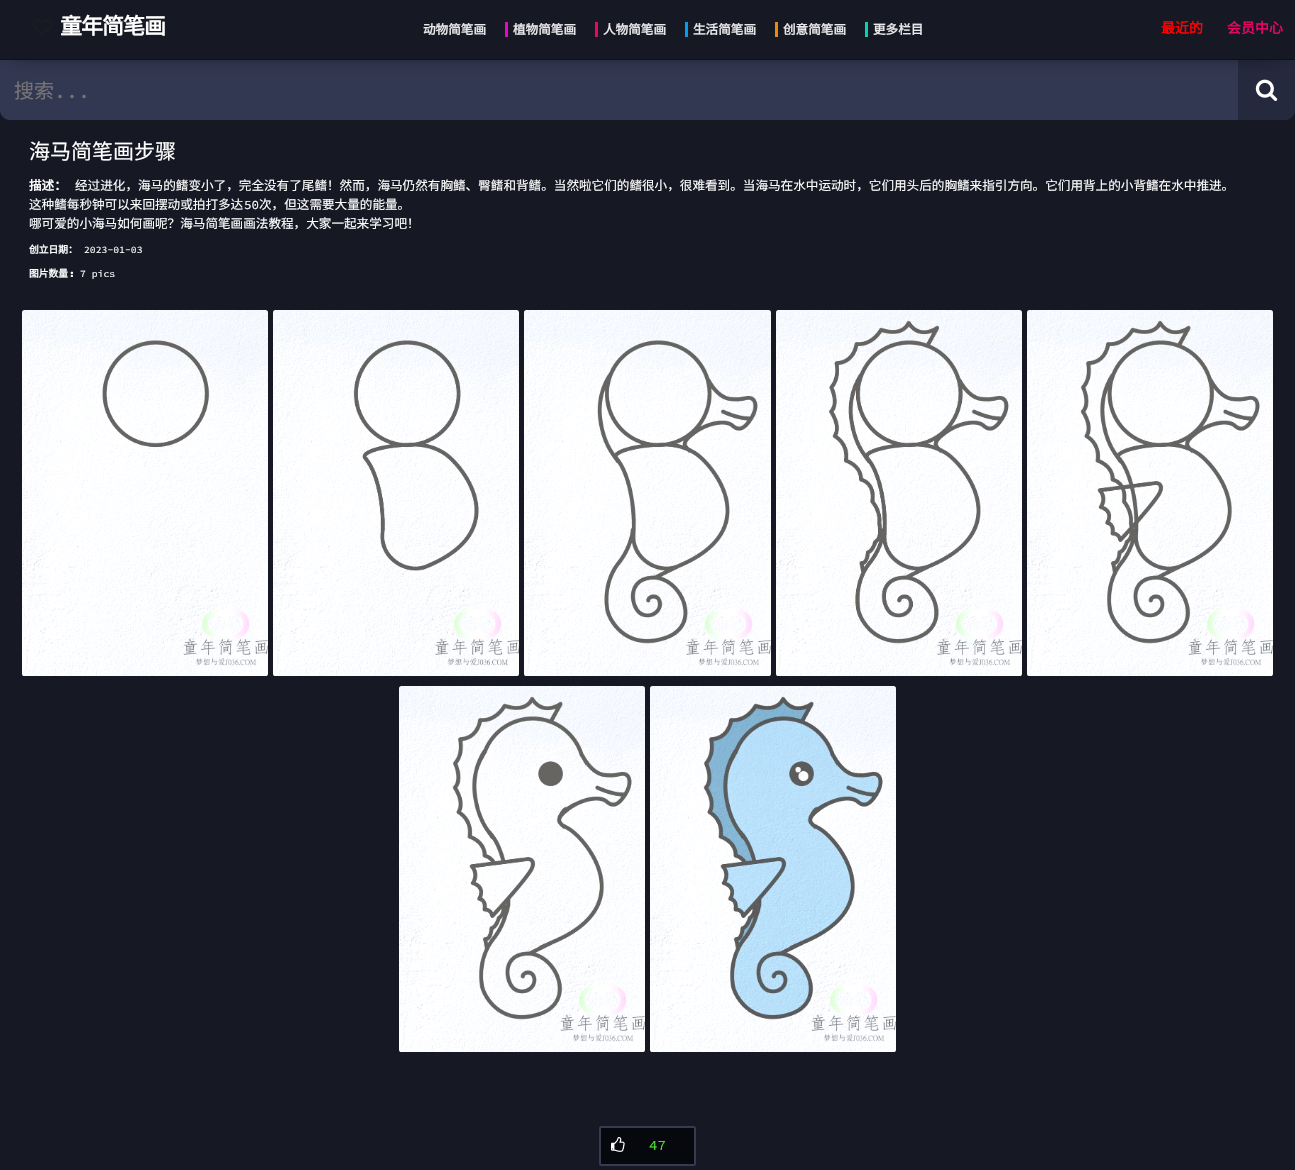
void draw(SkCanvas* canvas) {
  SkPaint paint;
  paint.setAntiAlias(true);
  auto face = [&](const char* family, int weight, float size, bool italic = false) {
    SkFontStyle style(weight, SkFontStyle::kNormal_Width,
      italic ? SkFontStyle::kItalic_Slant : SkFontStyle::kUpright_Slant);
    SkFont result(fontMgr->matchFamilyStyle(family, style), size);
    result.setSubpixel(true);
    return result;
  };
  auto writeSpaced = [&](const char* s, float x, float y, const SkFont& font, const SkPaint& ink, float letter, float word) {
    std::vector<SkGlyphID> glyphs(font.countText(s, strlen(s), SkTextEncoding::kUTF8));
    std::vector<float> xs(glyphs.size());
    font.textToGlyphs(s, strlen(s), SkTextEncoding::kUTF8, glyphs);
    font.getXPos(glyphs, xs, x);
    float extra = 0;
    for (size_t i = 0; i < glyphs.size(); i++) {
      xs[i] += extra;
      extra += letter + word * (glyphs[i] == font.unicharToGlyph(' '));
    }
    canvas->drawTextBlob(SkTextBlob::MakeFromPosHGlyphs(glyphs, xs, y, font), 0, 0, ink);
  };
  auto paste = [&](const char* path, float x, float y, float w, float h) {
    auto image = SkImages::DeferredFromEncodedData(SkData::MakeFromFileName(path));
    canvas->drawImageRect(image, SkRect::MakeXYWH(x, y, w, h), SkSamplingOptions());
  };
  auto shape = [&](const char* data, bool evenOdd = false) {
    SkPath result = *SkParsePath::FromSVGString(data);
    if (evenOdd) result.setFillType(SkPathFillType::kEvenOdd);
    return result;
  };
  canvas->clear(0xff161824);
  paint.setColor(0xff333852);
  canvas->drawPath(shape("M0 60H1238V120H10C4.5 120 0 115.5 0 110Z"), paint);
  paint.setColor(0xff25293e);
  canvas->drawPath(shape("M1238 60H1295V110C1295 115.5 1290.5 120 1285 120H1238Z"), paint);
  paste("img/2.png", 1255, 79, 23, 22);
  canvas->save();
  canvas->clipRect(SkRect::MakeXYWH(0, 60, 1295, 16));
  paint.setColor(0xff020204);
  paint.setMaskFilter(SkMaskFilter::MakeBlur(kNormal_SkBlurStyle, 12.5f));
  canvas->drawRect(SkRect::MakeXYWH(10, 10, 1275, 40), paint);
  paint.setMaskFilter(nullptr);
  canvas->restore();
  paint.setColor(0xff0e0f18);
  canvas->drawRect(SkRect::MakeXYWH(0, 59, 1295, 1), paint);
  paste("img/1.png", 33, 19, 19, 16);
  {
    const struct { float x, y, w, h; SkColor color; } items[] = {
      {505, 22, 3, 15, 0xffe807c3},
      {595, 22, 3, 15, 0xffe80766},
      {685, 22, 3, 15, 0xff029ee9},
      {775, 22, 3, 15, 0xffe88c04},
      {865, 22, 3, 15, 0xff02d3b8},
    };
    for (auto [x, y, w, h, color] : items) {
      paint.setColor(color);
      canvas->drawRect(SkRect::MakeXYWH(x, y, w, h), paint);
    }
  }
  paste("img/3.png", 22, 310, 246, 366);
  paste("img/4.png", 273, 310, 246, 366);
  paste("img/5.png", 524, 310, 247, 366);
  paste("img/6.png", 776, 310, 246, 366);
  paste("img/7.png", 1027, 310, 246, 366);
  paste("img/8.png", 399, 686, 246, 366);
  paste("img/9.png", 650, 686, 246, 366);
  paint.setColor(0xff07080e);
  canvas->drawRoundRect(SkRect::MakeXYWH(600, 1127, 95, 38), 1.5f, 1.5f, paint);
  paint.setStroke(true);
  paint.setStrokeWidth(2);
  paint.setColor(0xff383a4e);
  canvas->drawRoundRect(SkRect::MakeXYWH(600, 1127, 95, 38), 1.5f, 1.5f, paint);
  paste("img/10.png", 611, 1137, 14, 15);
  auto f0 = face("Noto Sans CJK SC", 700, 22);
  paint.setStroke(false);
  paint.setColor(0xffffffff);
  writeSpaced("童年简笔画", 60, 34, f0, paint, -1, 0);
  auto f1 = face("Noto Sans CJK SC", 700, 12.6f);
  paint.setColor(0xffe8e8e9);
  {
    const struct { const char* s; float x, y; } items[] = {
      {"动物简笔画", 423, 34},
      {"植物简笔画", 513, 34},
      {"人物简笔画", 603, 34},
      {"生活简笔画", 693, 34},
      {"创意简笔画", 783, 34},
      {"更多栏目", 873, 34},
    };
    for (auto [s, x, y] : items) {
      canvas->drawString(s, x, y, f1, paint);
    }
  }
  auto f2 = face("Noto Sans CJK SC", 700, 14);
  paint.setColor(0xffff0000);
  canvas->drawString("最近的", 1161, 33, f2, paint);
  paint.setColor(0xffe70666);
  canvas->drawString("会员中心", 1227, 33, f2, paint);
  auto f3 = face("Noto Sans CJK SC", 400, 20);
  paint.setColor(0xff757575);
  canvas->drawString("搜索", 14, 98, f3, paint);
  auto f4 = face("Source Code Pro", 400, 20);
  canvas->drawString("...", 54, 98, f4, paint);
  auto f5 = face("Noto Sans CJK SC", 400, 21);
  paint.setColor(0xffffffff);
  canvas->drawString("海马简笔画步骤", 29, 159, f5, paint);
  canvas->drawString("描述：", 29, 190, f1, paint);
  auto f6 = face("Noto Sans CJK SC", 400, 12.6f);
  canvas->drawString("经过进化，海马的鳍变小了，完全没有了尾鳍！然而，海马仍然有胸鳍、臀鳍和背鳍。当然啦它们的鳍很小，很难看到。当海马在水中运动时，它们用头后的胸鳍来指引方向。它们用背上的小背鳍在水中推进。", 75, 190, f6, paint);
  canvas->drawString("这种鳍每秒钟可以来回摆动或拍打多达", 29, 209, f6, paint);
  auto f7 = face("Source Code Pro", 400, 12.6f);
  canvas->drawString("50", 244, 209, f7, paint);
  canvas->drawString("次，但这需要大量的能量。", 259, 209, f6, paint);
  canvas->drawString("哪可爱的小海马如何画呢？海马简笔画画法教程，大家一起来学习吧！", 29, 228, f6, paint);
  auto f8 = face("Noto Sans CJK SC", 700, 9.75f);
  canvas->drawString("创立日期：", 29, 253, f8, paint);
  auto f9 = face("Source Code Pro", 400, 9.75f);
  canvas->drawString("2023-01-03", 84, 253, f9, paint);
  canvas->drawString("图片数量", 29, 277, f8, paint);
  auto f10 = face("Source Code Pro", 700, 9.75f);
  canvas->drawString(":", 69, 277, f10, paint);
  canvas->drawString("7 pics", 80, 277, f9, paint);
  auto f11 = face("Source Code Pro", 400, 14);
  paint.setColor(0xff45e428);
  canvas->drawString("47", 649, 1150, f11, paint);
}
